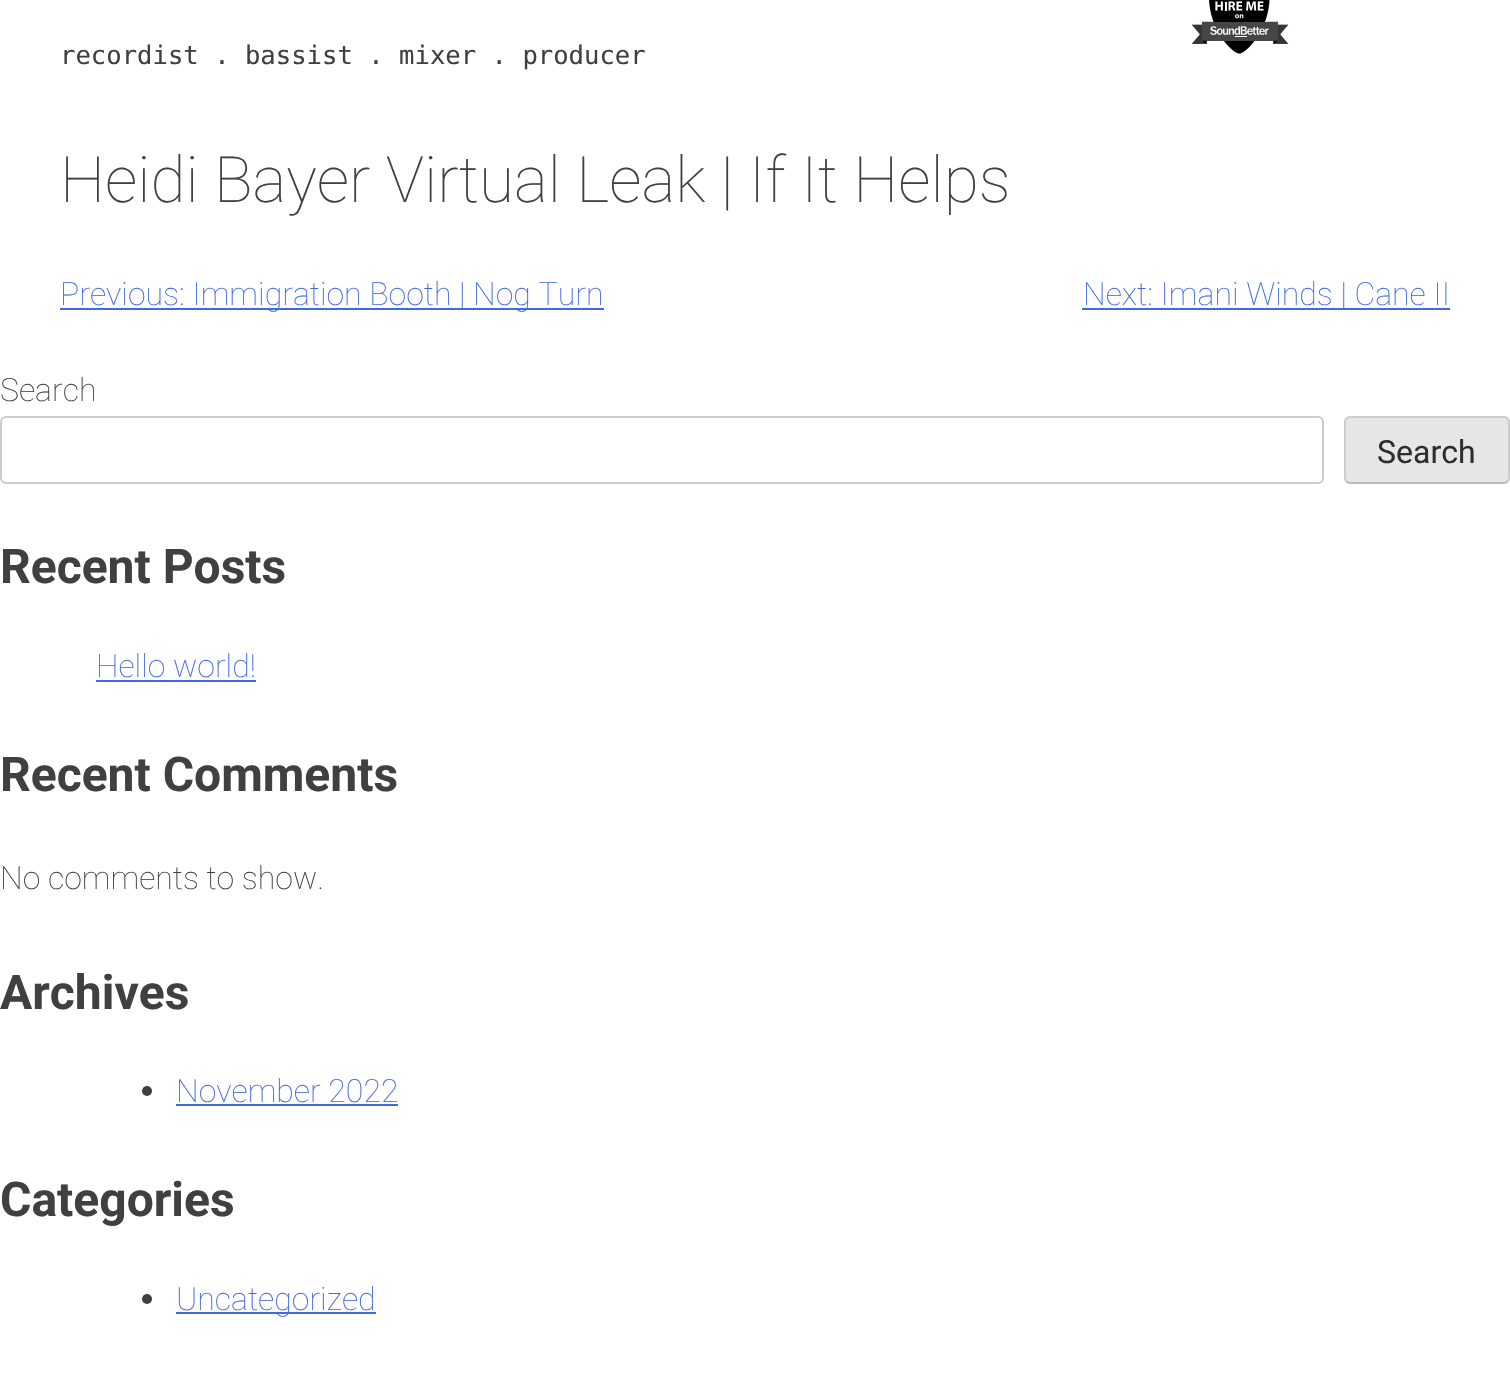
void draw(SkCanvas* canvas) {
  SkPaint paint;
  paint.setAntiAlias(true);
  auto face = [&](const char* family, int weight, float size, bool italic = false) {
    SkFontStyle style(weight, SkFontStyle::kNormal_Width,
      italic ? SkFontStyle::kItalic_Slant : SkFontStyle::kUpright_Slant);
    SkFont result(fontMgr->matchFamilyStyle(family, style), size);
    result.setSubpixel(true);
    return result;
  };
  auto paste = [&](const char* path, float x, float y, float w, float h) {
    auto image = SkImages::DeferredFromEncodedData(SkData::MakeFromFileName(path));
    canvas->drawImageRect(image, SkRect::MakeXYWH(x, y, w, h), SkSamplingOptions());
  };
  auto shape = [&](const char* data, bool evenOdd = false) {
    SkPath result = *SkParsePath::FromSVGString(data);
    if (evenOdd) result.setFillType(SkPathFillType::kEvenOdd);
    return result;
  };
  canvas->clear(0xffffffff);
  paste("img/1.png", 1191, 0, 98, 54);
  paint.setColor(0xff4169e1);
  canvas->drawRect(SkRect::MakeXYWH(60, 308, 544, 2), paint);
  canvas->drawRect(SkRect::MakeXYWH(1082, 308, 368, 2), paint);
  paint.setStroke(true);
  paint.setStrokeWidth(2);
  paint.setColor(0xffcccccc);
  canvas->drawRoundRect(SkRect::MakeXYWH(1, 417, 1322, 66), 5, 5, paint);
  paint.setStroke(false);
  paint.setColor(0xffe6e6e6);
  canvas->drawRoundRect(SkRect::MakeXYWH(1344, 416, 166, 68), 6, 6, paint);
  paint.setStroke(true);
  paint.setColor(0xffbbbbbb);
  canvas->drawPath(shape("M1507.5 481.5C1506.5 482.5 1505.5 483 1504 483H1350C1348.5 483 1347.5 482.5 1346.5 481.5"), paint);
  paint.setColor(0xffcccccc);
  canvas->drawPath(shape("M1346.5 481.5C1345.5 480.5 1345 479.5 1345 478V422C1345 420.5 1345.5 419.5 1346.5 418.5C1347.5 417.5 1348.5 417 1350 417H1504C1505.5 417 1506.5 417.5 1507.5 418.5C1508.5 419.5 1509 420.5 1509 422V478C1509 479.5 1508.5 480.5 1507.5 481.5"), paint);
  paint.setStroke(false);
  paint.setColor(0xff4169e1);
  canvas->drawRect(SkRect::MakeXYWH(96, 680, 160, 2), paint);
  paint.setColor(0xff404040);
  canvas->drawCircle(147, 1091, 5, paint);
  paint.setColor(0xff4169e1);
  canvas->drawRect(SkRect::MakeXYWH(176, 1104, 222, 2), paint);
  paint.setColor(0xff404040);
  canvas->drawCircle(147, 1299, 5, paint);
  paint.setColor(0xff4169e1);
  canvas->drawRect(SkRect::MakeXYWH(176, 1312, 200, 2), paint);
  auto f0 = face("DejaVu Sans Mono", 400, 25.6f);
  paint.setColor(0xff404040);
  canvas->drawString("recordist . bassist . mixer . producer", 60, 64, f0, paint);
  auto f1 = face("Roboto", 100, 64);
  canvas->drawString("Heidi Bayer Virtual Leak | If It Helps", 60, 202, f1, paint);
  auto f2 = face("Roboto", 100, 32);
  paint.setColor(0xff4169e1);
  canvas->drawString("Previous: Immigration Booth | Nog Turn", 60, 305, f2, paint);
  canvas->drawString("Next: Imani Winds | Cane II", 1083, 305, f2, paint);
  paint.setColor(0xff404040);
  canvas->drawString("Search", 0, 401, f2, paint);
  auto f3 = face("Roboto", 400, 32);
  paint.setColor(0xff2e2e2e);
  canvas->drawString("Search", 1377, 463, f3, paint);
  auto f4 = face("Roboto", 700, 48);
  paint.setColor(0xff404040);
  canvas->drawString("Recent Posts", 0, 583, f4, paint);
  paint.setColor(0xff4169e1);
  canvas->drawString("Hello world!", 96, 677, f2, paint);
  paint.setColor(0xff404040);
  canvas->drawString("Recent Comments", 0, 791, f4, paint);
  canvas->drawString("No comments to show.", 0, 889, f2, paint);
  canvas->drawString("Archives", 0, 1009, f4, paint);
  paint.setColor(0xff4169e1);
  canvas->drawString("November 2022", 176, 1102, f2, paint);
  paint.setColor(0xff404040);
  canvas->drawString("Categories", 0, 1216, f4, paint);
  paint.setColor(0xff4169e1);
  canvas->drawString("Uncategorized", 176, 1310, f2, paint);
}
